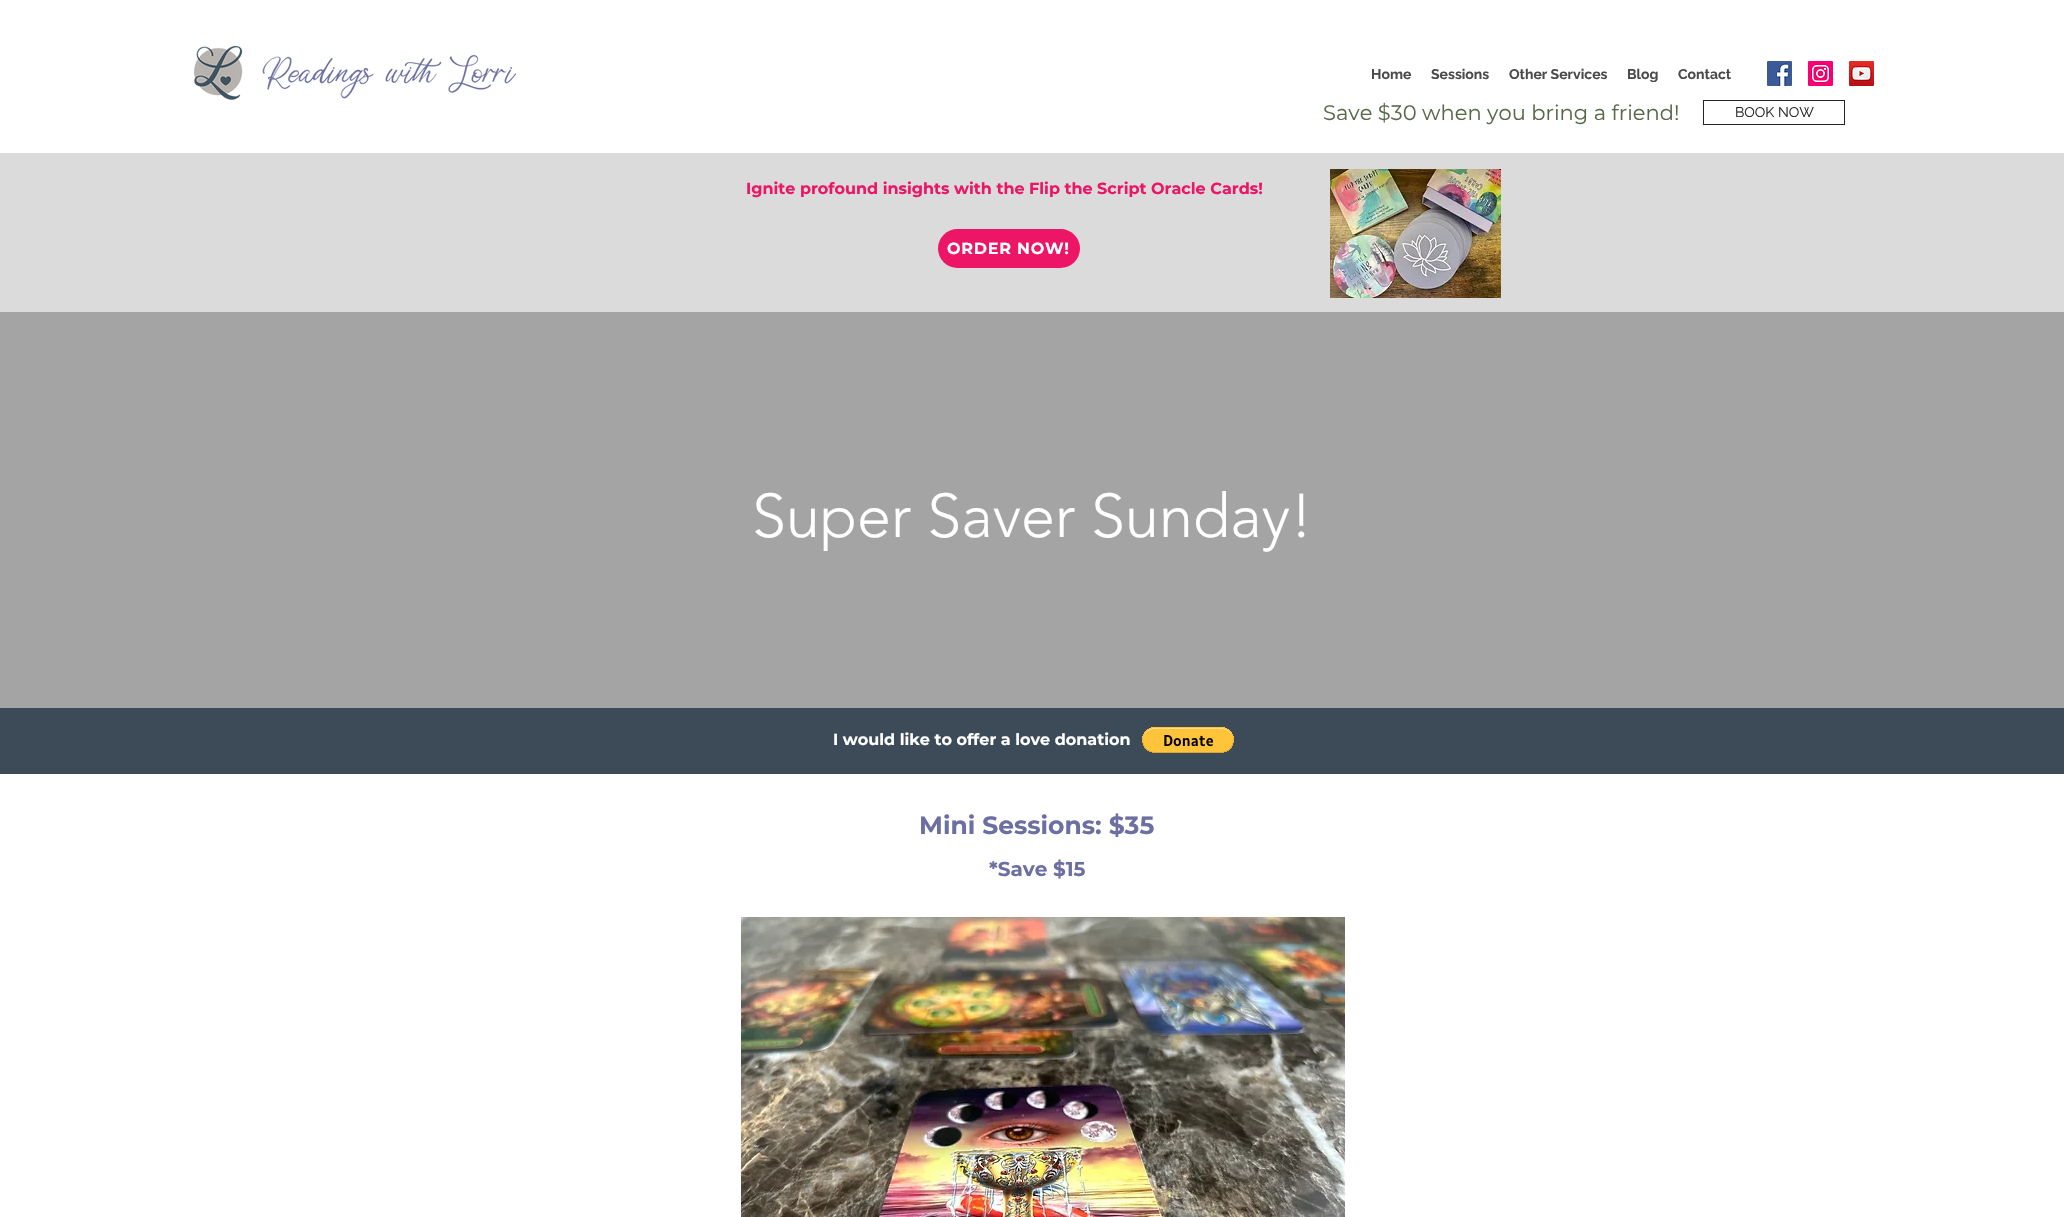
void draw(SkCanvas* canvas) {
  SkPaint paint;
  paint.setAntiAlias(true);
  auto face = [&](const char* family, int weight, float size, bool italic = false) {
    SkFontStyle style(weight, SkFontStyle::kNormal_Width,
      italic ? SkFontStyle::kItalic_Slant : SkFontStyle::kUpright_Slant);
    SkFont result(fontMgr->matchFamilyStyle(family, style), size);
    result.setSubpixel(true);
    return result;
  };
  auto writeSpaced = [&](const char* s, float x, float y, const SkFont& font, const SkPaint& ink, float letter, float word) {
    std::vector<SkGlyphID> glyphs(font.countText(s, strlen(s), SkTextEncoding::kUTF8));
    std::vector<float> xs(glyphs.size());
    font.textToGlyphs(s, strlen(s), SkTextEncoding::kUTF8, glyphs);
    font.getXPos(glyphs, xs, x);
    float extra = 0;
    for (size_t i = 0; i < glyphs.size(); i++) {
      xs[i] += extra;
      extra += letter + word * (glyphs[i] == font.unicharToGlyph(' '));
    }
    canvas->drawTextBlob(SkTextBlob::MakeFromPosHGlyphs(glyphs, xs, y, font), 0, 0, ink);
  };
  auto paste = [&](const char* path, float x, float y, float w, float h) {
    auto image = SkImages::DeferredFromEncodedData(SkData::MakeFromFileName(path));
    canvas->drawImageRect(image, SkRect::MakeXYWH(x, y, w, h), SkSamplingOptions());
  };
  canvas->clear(0xffffffff);
  paste("img/1.png", 194, 46, 322, 54);
  paste("img/2.png", 1767, 61, 25, 25);
  paste("img/3.png", 1808, 61, 25, 25);
  paste("img/4.png", 1849, 61, 25, 25);
  paint.setStroke(true);
  paint.setStrokeWidth(1);
  paint.setColor(0xff252525);
  canvas->drawRect(SkRect::MakeXYWH(1703.5f, 100.5f, 141, 24), paint);
  paint.setStroke(false);
  paint.setColor(0xffdbdbdb);
  canvas->drawRect(SkRect::MakeXYWH(0, 153, 2064, 159), paint);
  paste("img/5.png", 1330, 169, 171, 129);
  paint.setColor(0xffed1566);
  canvas->drawRoundRect(SkRect::MakeXYWH(938, 229, 142, 39), 19.5f, 19.5f, paint);
  paint.setColor(0xffa4a4a4);
  canvas->drawRect(SkRect::MakeXYWH(0, 312, 2064, 396), paint);
  paint.setColor(0xff3d4b58);
  canvas->drawRect(SkRect::MakeXYWH(0, 708, 2064, 66), paint);
  paste("img/6.png", 1142, 727, 92, 26);
  paste("img/7.png", 741, 917, 604, 300);
  auto f0 = face("Raleway", 700, 14);
  paint.setColor(0xff4a4a4a);
  {
    const struct { const char* s; float x, y; } items[] = {
      {"Home", 1371, 79},
      {"Sessions", 1431, 79},
      {"Other Services", 1509, 79},
      {"Blog", 1627, 79},
      {"Contact", 1678, 79},
    };
    for (auto [s, x, y] : items) {
      canvas->drawString(s, x, y, f0, paint);
    }
  }
  auto f1 = face("Montserrat", 400, 21);
  paint.setColor(0xff58694a);
  canvas->drawString("Save $30 when you bring a friend!", 1323, 120, f1, paint);
  auto f2 = face("Raleway", 400, 14);
  paint.setColor(0xff252525);
  canvas->drawString("BOOK NOW", 1735, 117, f2, paint);
  auto f3 = face("Montserrat", 700, 16);
  paint.setColor(0xffed1566);
  canvas->drawString("Ignite profound insights with the Flip the Script Oracle Cards!", 746, 194, f3, paint);
  paint.setColor(0xffffffff);
  writeSpaced("ORDER NOW!", 947, 254, f3, paint, 0.75f, 0);
  auto f4 = face("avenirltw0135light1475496", 300, 61);
  canvas->drawString("Super Saver Sunday!", 752, 537, f4, paint);
  canvas->drawString("I would like to offer a love donation", 833, 745, f3, paint);
  auto f5 = face("Montserrat", 700, 25);
  paint.setColor(0xff6c6fa2);
  canvas->drawString("Mini Sessions: $35", 919, 834, f5, paint);
  auto f6 = face("Montserrat", 700, 20);
  canvas->drawString("*Save $15", 989, 876, f6, paint);
}
